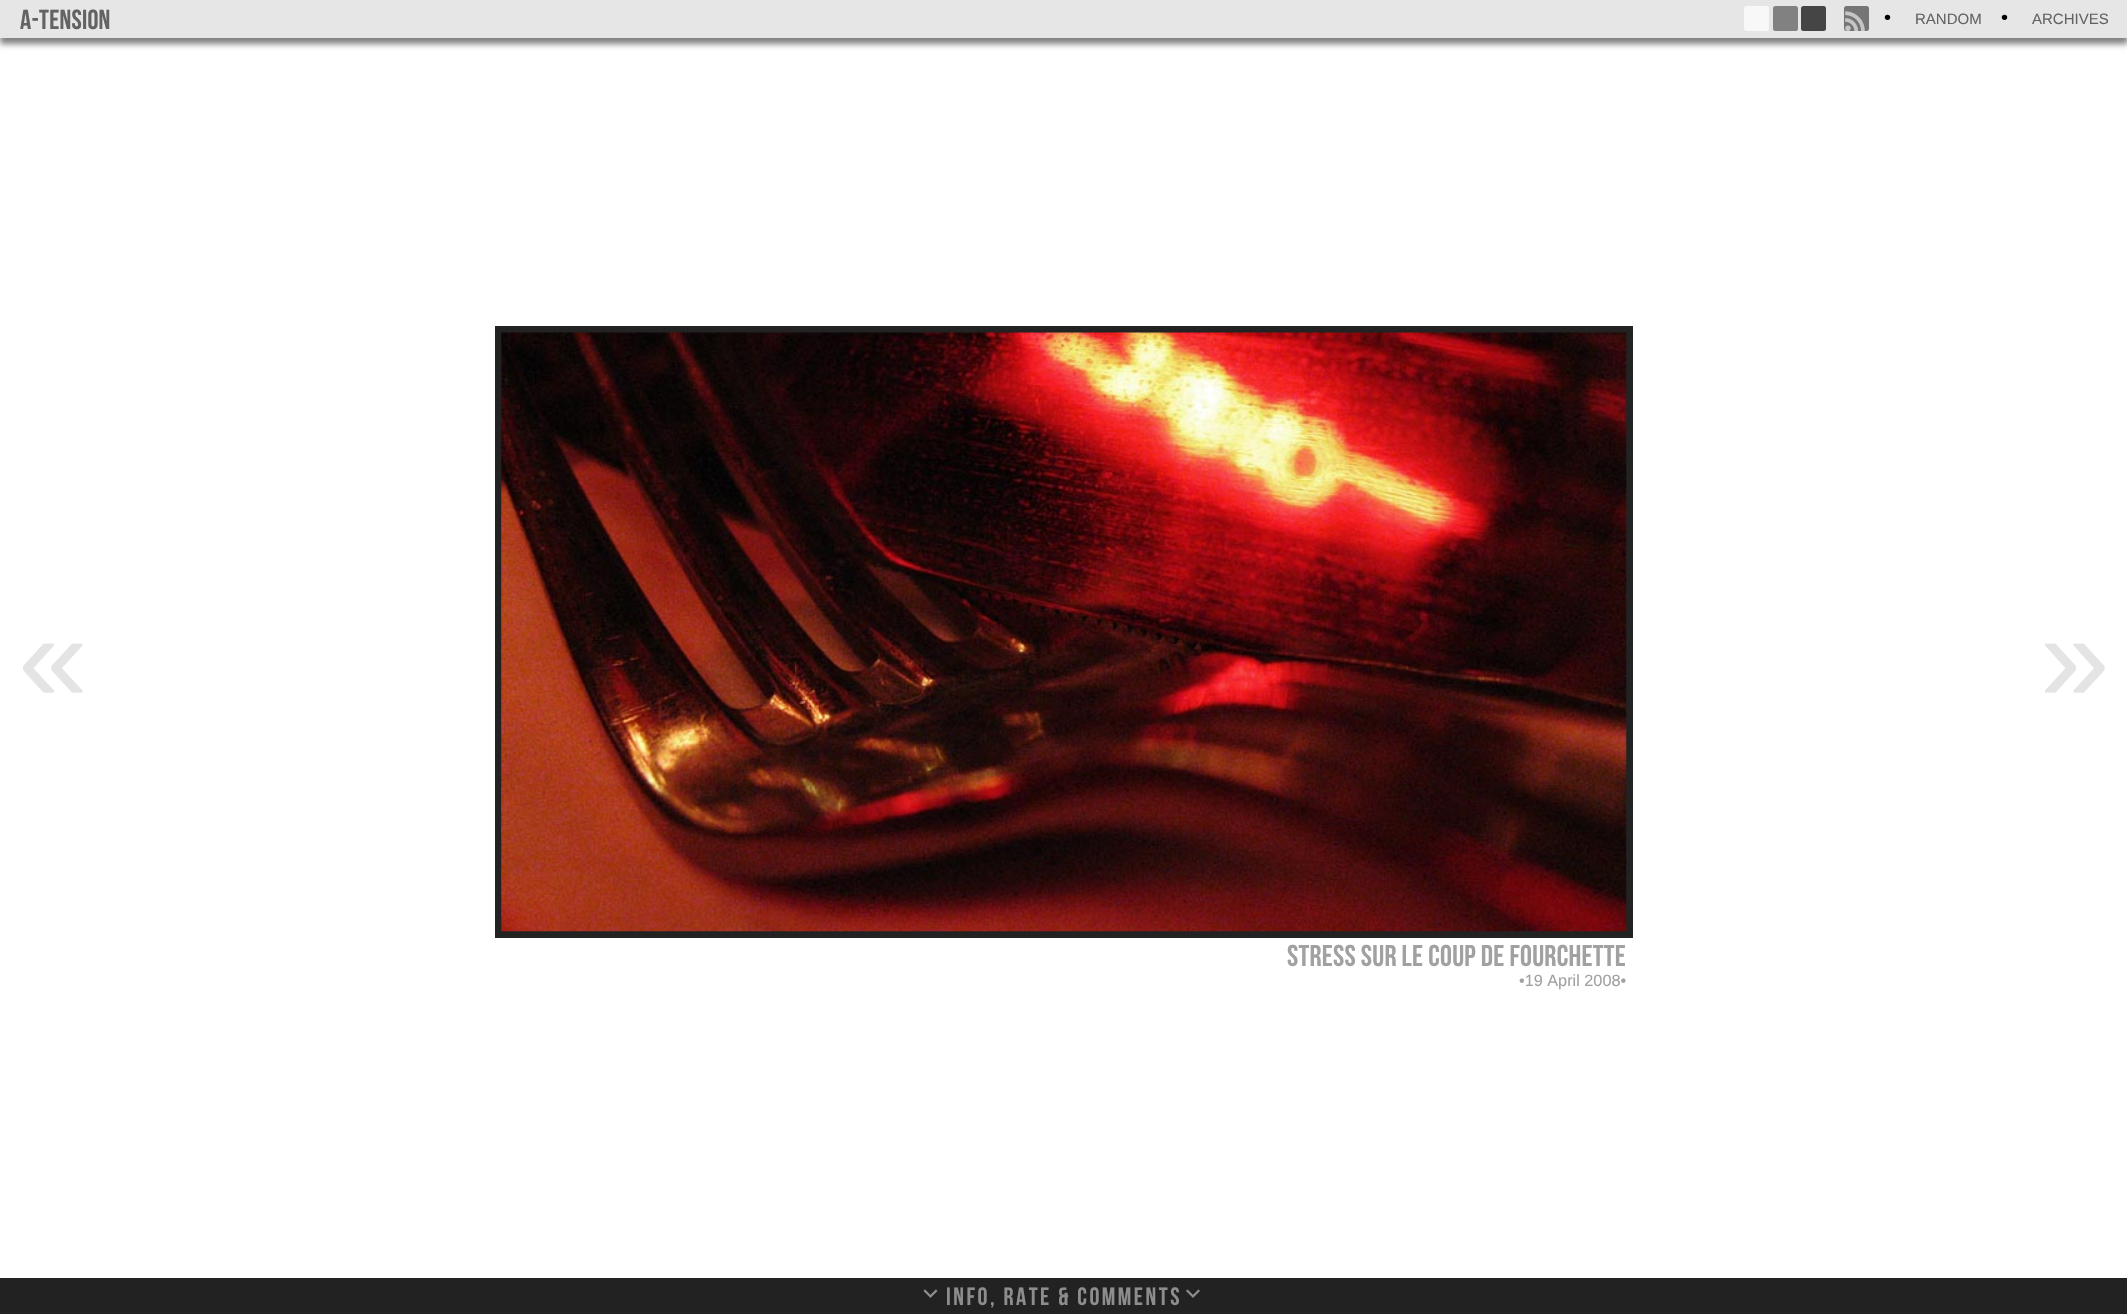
void draw(SkCanvas* canvas) {
  SkPaint paint;
  paint.setAntiAlias(true);
  auto face = [&](const char* family, int weight, float size, bool italic = false) {
    SkFontStyle style(weight, SkFontStyle::kNormal_Width,
      italic ? SkFontStyle::kItalic_Slant : SkFontStyle::kUpright_Slant);
    SkFont result(fontMgr->matchFamilyStyle(family, style), size);
    result.setSubpixel(true);
    return result;
  };
  auto writeSpaced = [&](const char* s, float x, float y, const SkFont& font, const SkPaint& ink, float letter, float word) {
    std::vector<SkGlyphID> glyphs(font.countText(s, strlen(s), SkTextEncoding::kUTF8));
    std::vector<float> xs(glyphs.size());
    font.textToGlyphs(s, strlen(s), SkTextEncoding::kUTF8, glyphs);
    font.getXPos(glyphs, xs, x);
    float extra = 0;
    for (size_t i = 0; i < glyphs.size(); i++) {
      xs[i] += extra;
      extra += letter + word * (glyphs[i] == font.unicharToGlyph(' '));
    }
    canvas->drawTextBlob(SkTextBlob::MakeFromPosHGlyphs(glyphs, xs, y, font), 0, 0, ink);
  };
  auto paste = [&](const char* path, float x, float y, float w, float h) {
    auto image = SkImages::DeferredFromEncodedData(SkData::MakeFromFileName(path));
    canvas->drawImageRect(image, SkRect::MakeXYWH(x, y, w, h), SkSamplingOptions());
  };
  canvas->clear(0xff222222);
  paint.setColor(0xffffffff);
  canvas->drawRect(SkRect::MakeXYWH(0, 38, 2127, 1240), paint);
  paint.setColor(0x80000000);
  paint.setMaskFilter(SkMaskFilter::MakeBlur(kNormal_SkBlurStyle, 3));
  canvas->drawRect(SkRect::MakeXYWH(0, 6, 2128, 38), paint);
  paint.setMaskFilter(nullptr);
  paint.setColor(0xffe6e6e6);
  canvas->drawRect(SkRect::MakeXYWH(0, 0, 2127, 38), paint);
  paint.setColor(0xfff8f8f8);
  canvas->drawRoundRect(SkRect::MakeXYWH(1744, 6, 25, 25), 2.5f, 2.5f, paint);
  paint.setColor(0xff818181);
  canvas->drawRoundRect(SkRect::MakeXYWH(1773, 6, 25, 25), 2.5f, 2.5f, paint);
  paint.setColor(0xff454545);
  canvas->drawRoundRect(SkRect::MakeXYWH(1801, 6, 25, 25), 2.5f, 2.5f, paint);
  paint.setColor(0xff757575);
  canvas->drawRoundRect(SkRect::MakeXYWH(1844, 6, 25, 25), 2.5f, 2.5f, paint);
  paste("img/1.png", 1845, 11, 20, 20);
  paint.setColor(0xff222222);
  canvas->drawRect(SkRect::MakeXYWH(495, 326, 1138, 612), paint);
  paste("img/2.png", 501, 332, 1126, 600);
  paste("img/3.png", 923, 1289, 15, 9);
  paste("img/4.png", 1186, 1289, 14, 9);
  auto f0 = face("Bebas Neue", 400, 27.5f);
  paint.setColor(0xff636363);
  writeSpaced("a-tension", 20, 29, f0, paint, 0.25f, 0);
  auto f1 = face("Liberation Sans", 400, 20);
  paint.setColor(0xff000000);
  canvas->drawString("•", 1884, 24, f1, paint);
  auto f2 = face("Liberation Sans", 400, 15);
  paint.setColor(0xff636363);
  canvas->drawString("RANDOM", 1915, 24, f2, paint);
  paint.setColor(0xff000000);
  canvas->drawString("•", 2001, 24, f1, paint);
  paint.setColor(0xff636363);
  canvas->drawString("ARCHIVES", 2032, 24, f2, paint);
  auto f3 = face("Liberation Sans", 400, 125);
  paint.setColor(0xffe4e4e4);
  canvas->drawString("«", 18, 701, f3, paint);
  canvas->drawString("»", 2040, 701, f3, paint);
  auto f4 = face("Bebas Neue", 400, 30);
  paint.setColor(0xffa1a1a1);
  writeSpaced("stress sur le coup de fourchette", 1287, 966, f4, paint, 0.25f, 0);
  auto f5 = face("Liberation Sans", 400, 16.25f);
  canvas->drawString("•19 April 2008•", 1519, 986, f5, paint);
  auto f6 = face("Bebas Neue", 400, 25);
  paint.setColor(0xff8d8d8d);
  writeSpaced("Info, rate & Comments", 946, 1305, f6, paint, 2.5f, 0);
}
